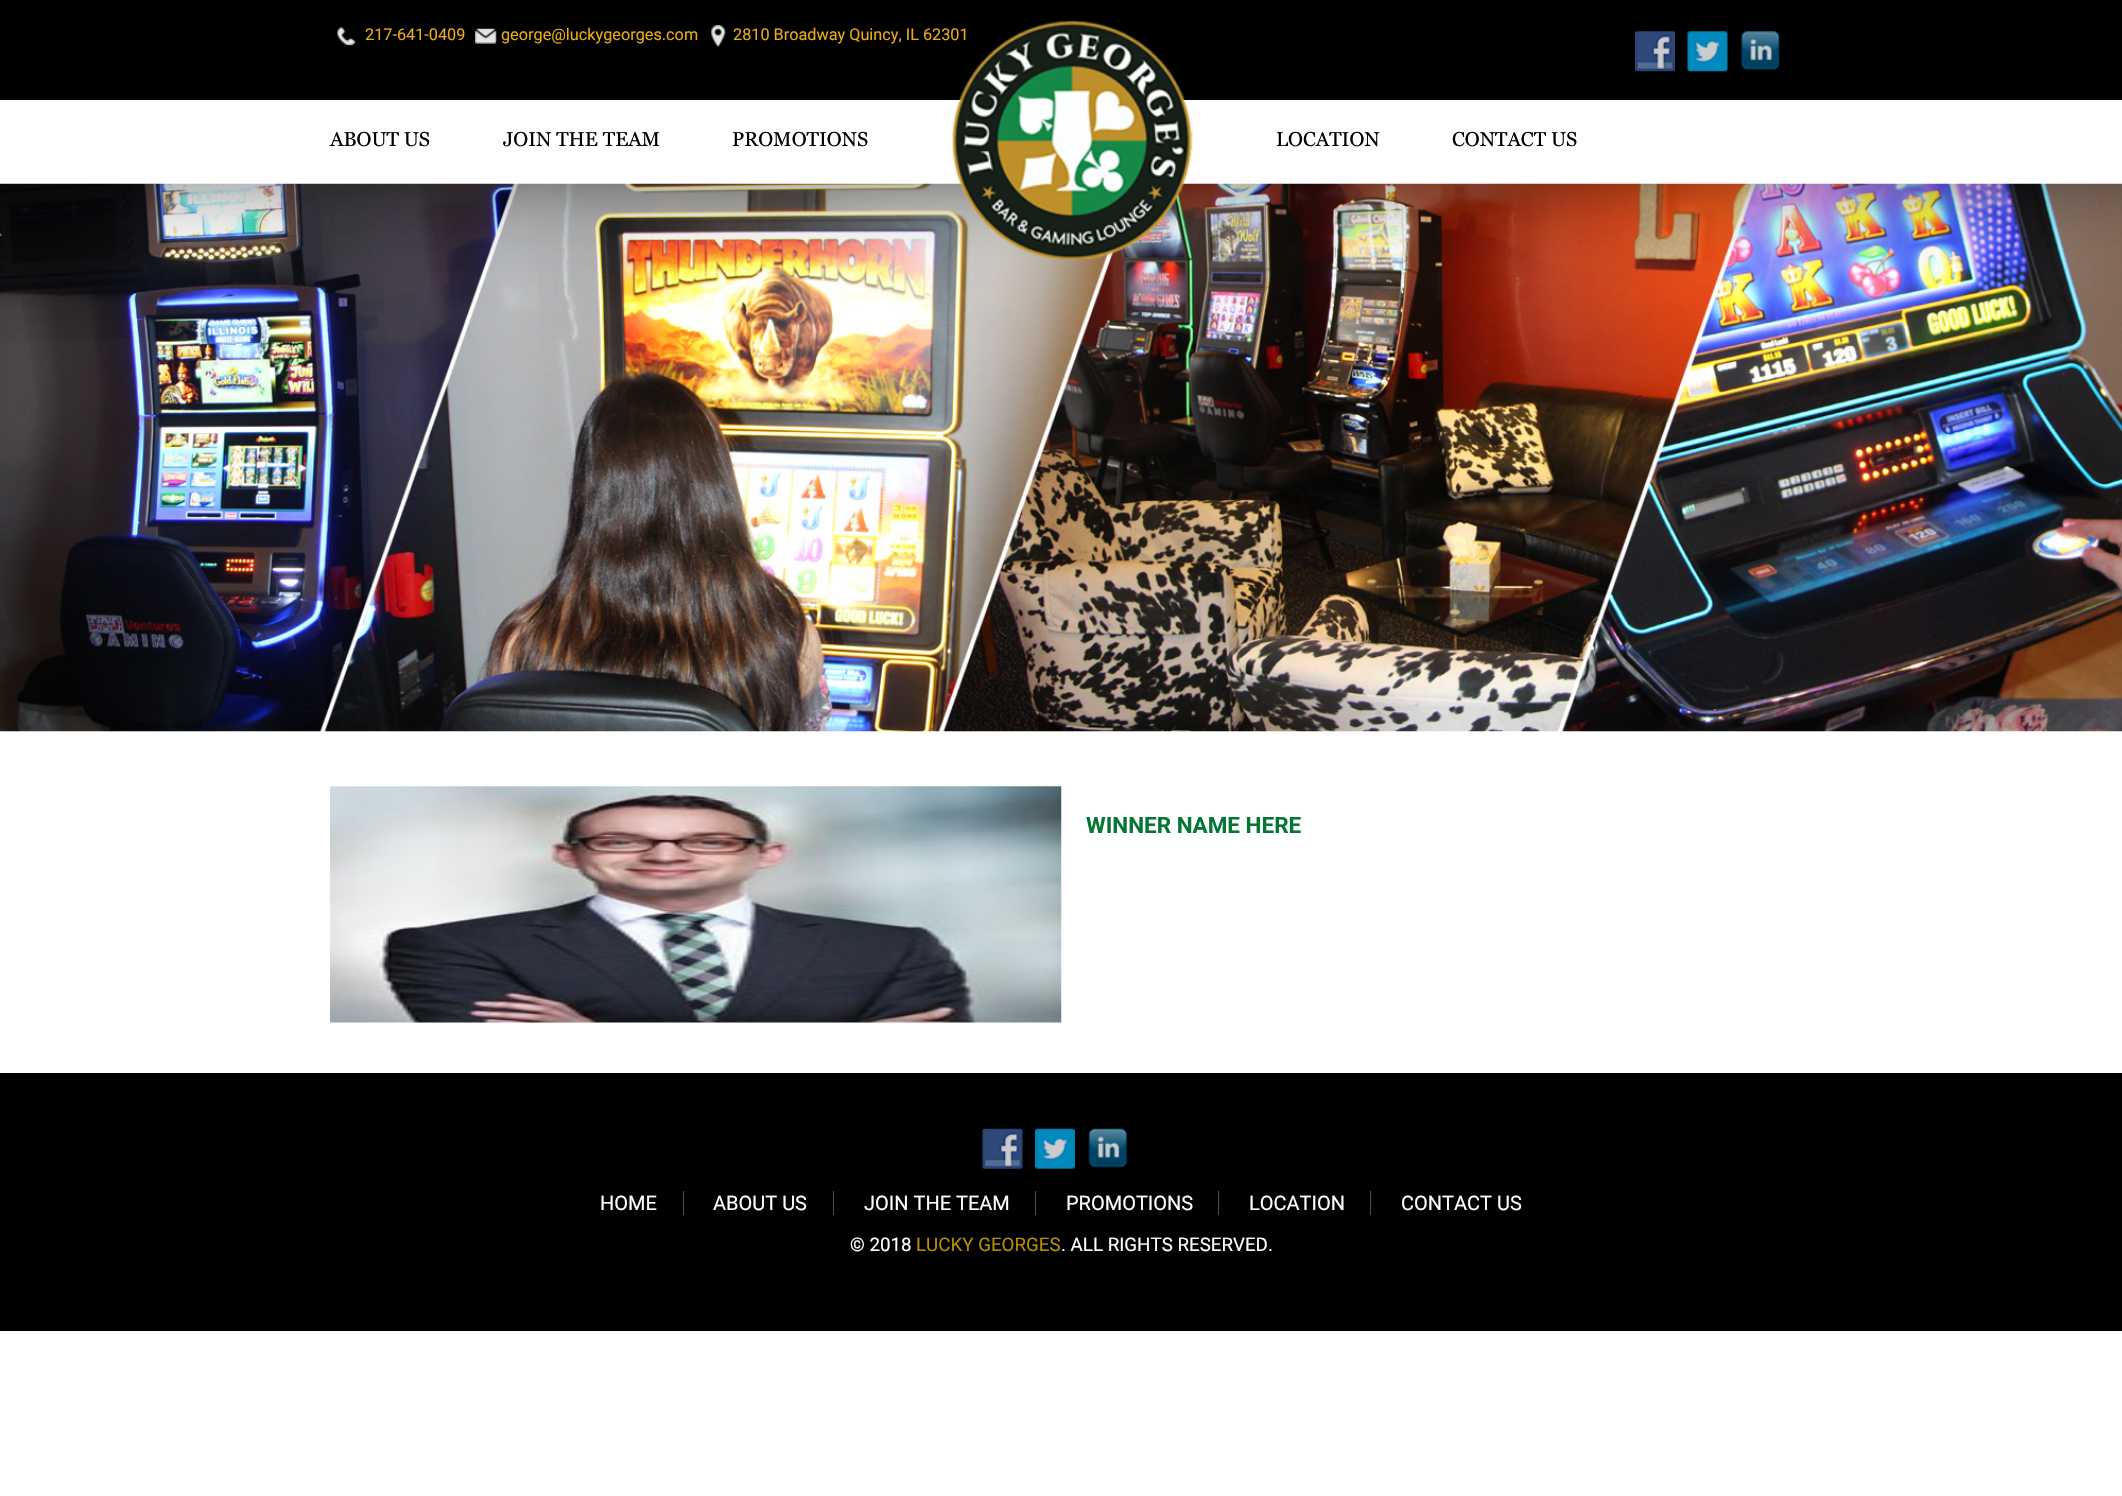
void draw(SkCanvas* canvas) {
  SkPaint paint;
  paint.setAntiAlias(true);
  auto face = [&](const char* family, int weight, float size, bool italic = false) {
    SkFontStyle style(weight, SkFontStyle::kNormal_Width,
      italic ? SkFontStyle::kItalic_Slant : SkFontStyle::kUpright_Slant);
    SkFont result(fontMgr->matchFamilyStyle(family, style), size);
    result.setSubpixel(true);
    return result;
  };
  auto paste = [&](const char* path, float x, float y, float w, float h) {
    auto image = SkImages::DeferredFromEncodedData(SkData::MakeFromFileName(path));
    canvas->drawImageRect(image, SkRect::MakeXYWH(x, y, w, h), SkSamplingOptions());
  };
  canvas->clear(0xffffffff);
  paint.setColor(0xff000000);
  canvas->drawRect(SkRect::MakeXYWH(0, 0, 2122, 100), paint);
  paste("img/1.png", 337, 27, 19, 19);
  paste("img/2.png", 475, 28, 22, 16);
  paste("img/3.png", 711, 25, 15, 22);
  paste("img/4.png", 1635, 31, 40, 41);
  paste("img/5.png", 1687, 31, 41, 41);
  paste("img/6.png", 1741, 31, 39, 39);
  paste("img/8.png", 0, 183, 2122, 549);
  paste("img/9.png", 330, 786, 732, 237);
  canvas->drawRect(SkRect::MakeXYWH(0, 1073, 2122, 258), paint);
  paste("img/10.png", 982, 1128, 41, 41);
  paste("img/11.png", 1035, 1128, 40, 41);
  paste("img/12.png", 1088, 1128, 40, 40);
  {
    const struct { float x, y, w, h; SkColor color; } items[] = {
      {683, 1191, 1, 24, 0xff4c4c4c},
      {833, 1191, 1, 24, 0xff4c4c4c},
      {1035, 1191, 1, 24, 0xff4c4c4c},
      {1218, 1191, 1, 24, 0xff4c4c4c},
      {1370, 1191, 1, 24, 0xff4c4c4c},
    };
    for (auto [x, y, w, h, color] : items) {
      paint.setColor(color);
      canvas->drawRect(SkRect::MakeXYWH(x, y, w, h), paint);
    }
  }
  auto f0 = face("Roboto", 400, 16.25f);
  paint.setColor(0xffecab16);
  {
    const struct { const char* s; float x, y; } items[] = {
      {"217-641-0409", 365, 40},
      {"george@luckygeorges.com", 501, 40},
      {"2810 Broadway Quincy, IL 62301", 733, 40},
    };
    for (auto [s, x, y] : items) {
      canvas->drawString(s, x, y, f0, paint);
    }
  }
  auto f1 = face("Georgia", 400, 20);
  paint.setColor(0xff000000);
  {
    const struct { const char* s; float x, y; } items[] = {
      {"ABOUT US", 330, 146},
      {"JOIN THE TEAM", 503, 146},
      {"PROMOTIONS", 732, 146},
    };
    for (auto [s, x, y] : items) {
      canvas->drawString(s, x, y, f1, paint);
    }
  }
  paste("img/7.png", 952, 21, 241, 238);
  canvas->drawString("LOCATION", 1276, 146, f1, paint);
  canvas->drawString("CONTACT US", 1452, 146, f1, paint);
  auto f2 = face("Roboto", 700, 22.5f);
  paint.setColor(0xff067637);
  canvas->drawString("WINNER NAME HERE", 1086, 833, f2, paint);
  auto f3 = face("Roboto", 400, 20);
  paint.setColor(0xffffffff);
  {
    const struct { const char* s; float x, y; } items[] = {
      {"HOME", 600, 1210},
      {"ABOUT US", 713, 1210},
      {"JOIN THE TEAM", 864, 1210},
      {"PROMOTIONS", 1066, 1210},
      {"LOCATION", 1249, 1210},
      {"CONTACT US", 1401, 1210},
    };
    for (auto [s, x, y] : items) {
      canvas->drawString(s, x, y, f3, paint);
    }
  }
  auto f4 = face("Roboto", 400, 18.75f);
  canvas->drawString("© 2018", 850, 1251, f4, paint);
  paint.setColor(0xffb58f01);
  canvas->drawString("LUCKY GEORGES", 916, 1251, f4, paint);
  paint.setColor(0xffffffff);
  canvas->drawString(". ALL RIGHTS RESERVED.", 1061, 1251, f4, paint);
}
